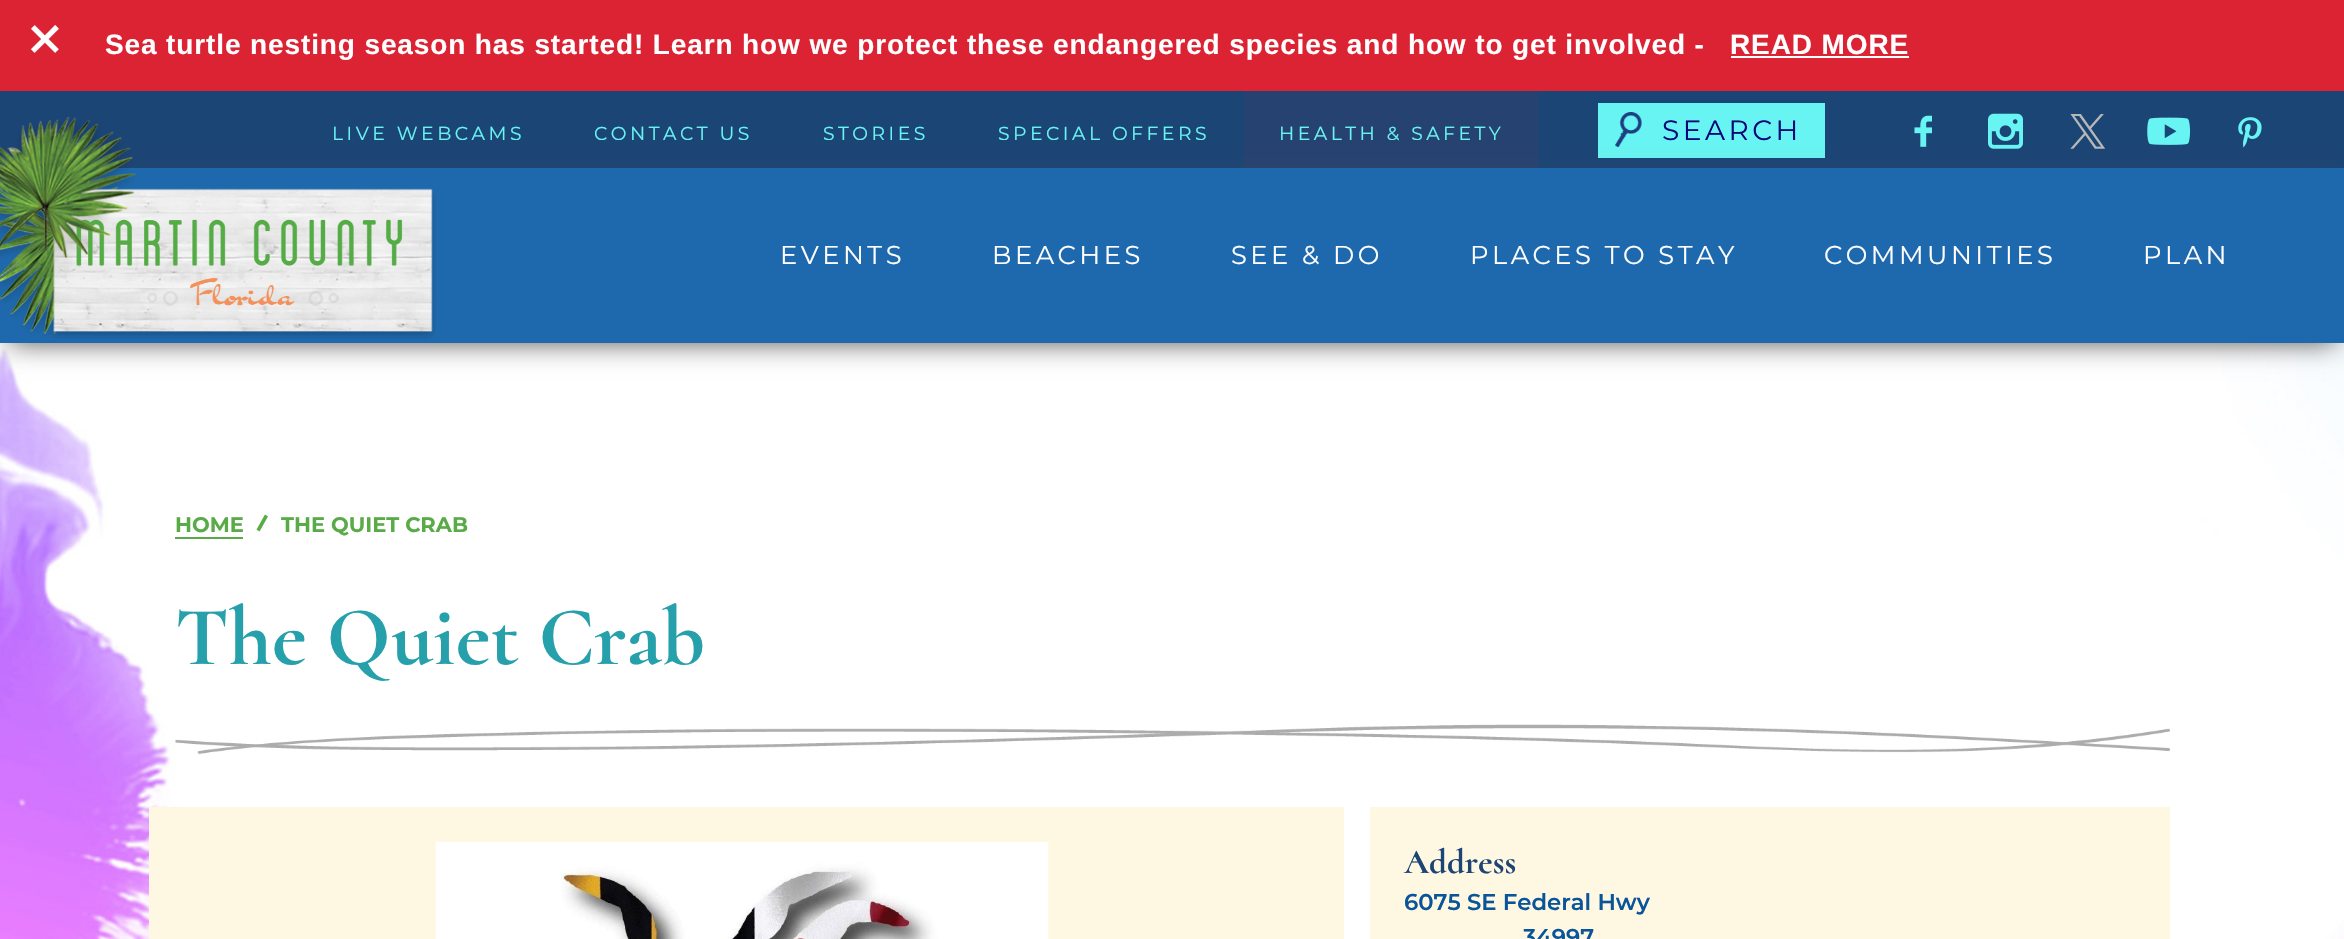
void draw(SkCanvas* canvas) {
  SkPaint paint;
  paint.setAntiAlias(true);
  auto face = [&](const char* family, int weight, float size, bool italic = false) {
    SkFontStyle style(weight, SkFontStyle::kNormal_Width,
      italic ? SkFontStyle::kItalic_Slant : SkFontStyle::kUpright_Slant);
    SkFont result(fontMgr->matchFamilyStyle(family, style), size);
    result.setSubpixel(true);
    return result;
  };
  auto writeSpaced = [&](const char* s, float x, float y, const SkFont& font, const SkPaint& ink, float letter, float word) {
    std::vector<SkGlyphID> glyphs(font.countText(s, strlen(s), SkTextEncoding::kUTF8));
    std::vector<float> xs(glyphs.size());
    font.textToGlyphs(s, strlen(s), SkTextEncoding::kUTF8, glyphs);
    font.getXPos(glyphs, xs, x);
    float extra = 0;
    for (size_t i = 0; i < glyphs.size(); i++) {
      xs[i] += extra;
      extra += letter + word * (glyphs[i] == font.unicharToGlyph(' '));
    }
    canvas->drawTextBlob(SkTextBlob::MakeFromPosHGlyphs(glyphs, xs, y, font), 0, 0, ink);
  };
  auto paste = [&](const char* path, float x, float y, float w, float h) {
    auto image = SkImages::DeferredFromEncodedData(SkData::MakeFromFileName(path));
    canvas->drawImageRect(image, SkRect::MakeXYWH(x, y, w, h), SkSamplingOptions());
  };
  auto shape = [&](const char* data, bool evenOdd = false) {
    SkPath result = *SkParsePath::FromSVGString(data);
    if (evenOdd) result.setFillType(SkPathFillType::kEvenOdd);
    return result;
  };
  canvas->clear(0xffffffff);
  {
    const struct { float x, y, w, h; SkColor color; } items[] = {
      {0, 0, 2344, 91, 0xffdb2333},
      {1731, 56, 178, 2, 0xffffffff},
      {0, 91, 2344, 77, 0xff1b4575},
      {1244, 91, 294, 77, 0xff264270},
      {1598, 103, 227, 55, 0xff68f4f2},
    };
    for (auto [x, y, w, h, color] : items) {
      paint.setColor(color);
      canvas->drawRect(SkRect::MakeXYWH(x, y, w, h), paint);
    }
  }
  paste("img/1.png", 1615, 112, 27, 35);
  paste("img/2.png", 1914, 115, 18, 32);
  paste("img/3.png", 1988, 113, 35, 36);
  paste("img/4.png", 2070, 114, 35, 35);
  paste("img/5.png", 2147, 117, 44, 28);
  paste("img/6.png", 2238, 117, 24, 31);
  paste("img/8.png", 0, 343, 2344, 596);
  paint.setColor(0xff555555);
  paint.setMaskFilter(SkMaskFilter::MakeBlur(kNormal_SkBlurStyle, 13));
  canvas->drawRect(SkRect::MakeXYWH(9, 186, 2327, 157), paint);
  paint.setMaskFilter(nullptr);
  paint.setColor(0xff1e69ad);
  canvas->drawRect(SkRect::MakeXYWH(0, 168, 2344, 175), paint);
  paint.setColor(0xff58ab47);
  canvas->drawRect(SkRect::MakeXYWH(175, 537, 68, 2), paint);
  canvas->drawPath(shape("M265 514.5L268 516.5L259.5 531.5L256.5 529.5Z"), paint);
  paste("img/9.png", 175, 724, 1995, 31);
  paint.setColor(0xfffef7e1);
  canvas->drawRect(SkRect::MakeXYWH(149, 807, 1195, 132), paint);
  paste("img/10.png", 435, 841, 614, 98);
  canvas->drawRect(SkRect::MakeXYWH(1370, 807, 800, 132), paint);
  auto f0 = face("Liberation Sans", 400, 70);
  paint.setColor(0xffffffff);
  canvas->save();
  canvas->rotate(45, 14, 41);
  canvas->drawString("+", 14, 41, f0, paint);
  canvas->restore();
  auto f1 = face("Liberation Sans", 700, 28);
  writeSpaced("Sea turtle nesting season has started! Learn how we protect these endangered species and how to get involved -", 105, 54, f1, paint, 0.88f, 0);
  writeSpaced("READ MORE", 1730, 54, f1, paint, 0.88f, 0);
  auto f2 = face("Montserrat", 400, 18.75f);
  paint.setColor(0xff68f4f2);
  {
    const struct { const char* s; float x, y; } items[] = {
      {"LIVE WEBCAMS", 332, 140},
      {"CONTACT US", 594, 140},
      {"STORIES", 823, 140},
      {"SPECIAL OFFERS", 998, 140},
      {"HEALTH & SAFETY", 1279, 140},
    };
    for (auto [s, x, y] : items) {
      writeSpaced(s, x, y, f2, paint, 3.5f, 0);
    }
  }
  auto f3 = face("Montserrat", 400, 28);
  paint.setColor(0xff0a0877);
  writeSpaced("SEARCH", 1662, 140, f3, paint, 3.5f, 0);
  paste("img/7.png", 0, 117, 436, 223);
  auto f4 = face("Montserrat", 400, 25.75f);
  paint.setColor(0xffffffff);
  {
    const struct { const char* s; float x, y; } items[] = {
      {"EVENTS", 780, 264},
      {"BEACHES", 992, 264},
      {"SEE & DO", 1231, 264},
      {"PLACES TO STAY", 1470, 264},
      {"COMMUNITIES", 1824, 264},
      {"PLAN", 2143, 264},
    };
    for (auto [s, x, y] : items) {
      writeSpaced(s, x, y, f4, paint, 3.5f, 0);
    }
  }
  auto f5 = face("Montserrat", 700, 21);
  paint.setColor(0xff58ab47);
  canvas->drawString("HOME", 175, 532, f5, paint);
  canvas->drawString("THE QUIET CRAB", 281, 532, f5, paint);
  auto f6 = face("Cormorant", 700, 84);
  paint.setColor(0xff26a0ab);
  canvas->drawString("The Quiet Crab", 175, 664, f6, paint);
  auto f7 = face("Cormorant", 700, 35);
  paint.setColor(0xff1c4575);
  canvas->drawString("Address", 1404, 873, f7, paint);
  auto f8 = face("Montserrat", 600, 22.75f);
  paint.setColor(0xff0a559a);
  canvas->drawString("6075 SE Federal Hwy", 1404, 910, f8, paint);
  canvas->drawString("34997", 1523, 945, f8, paint);
}
